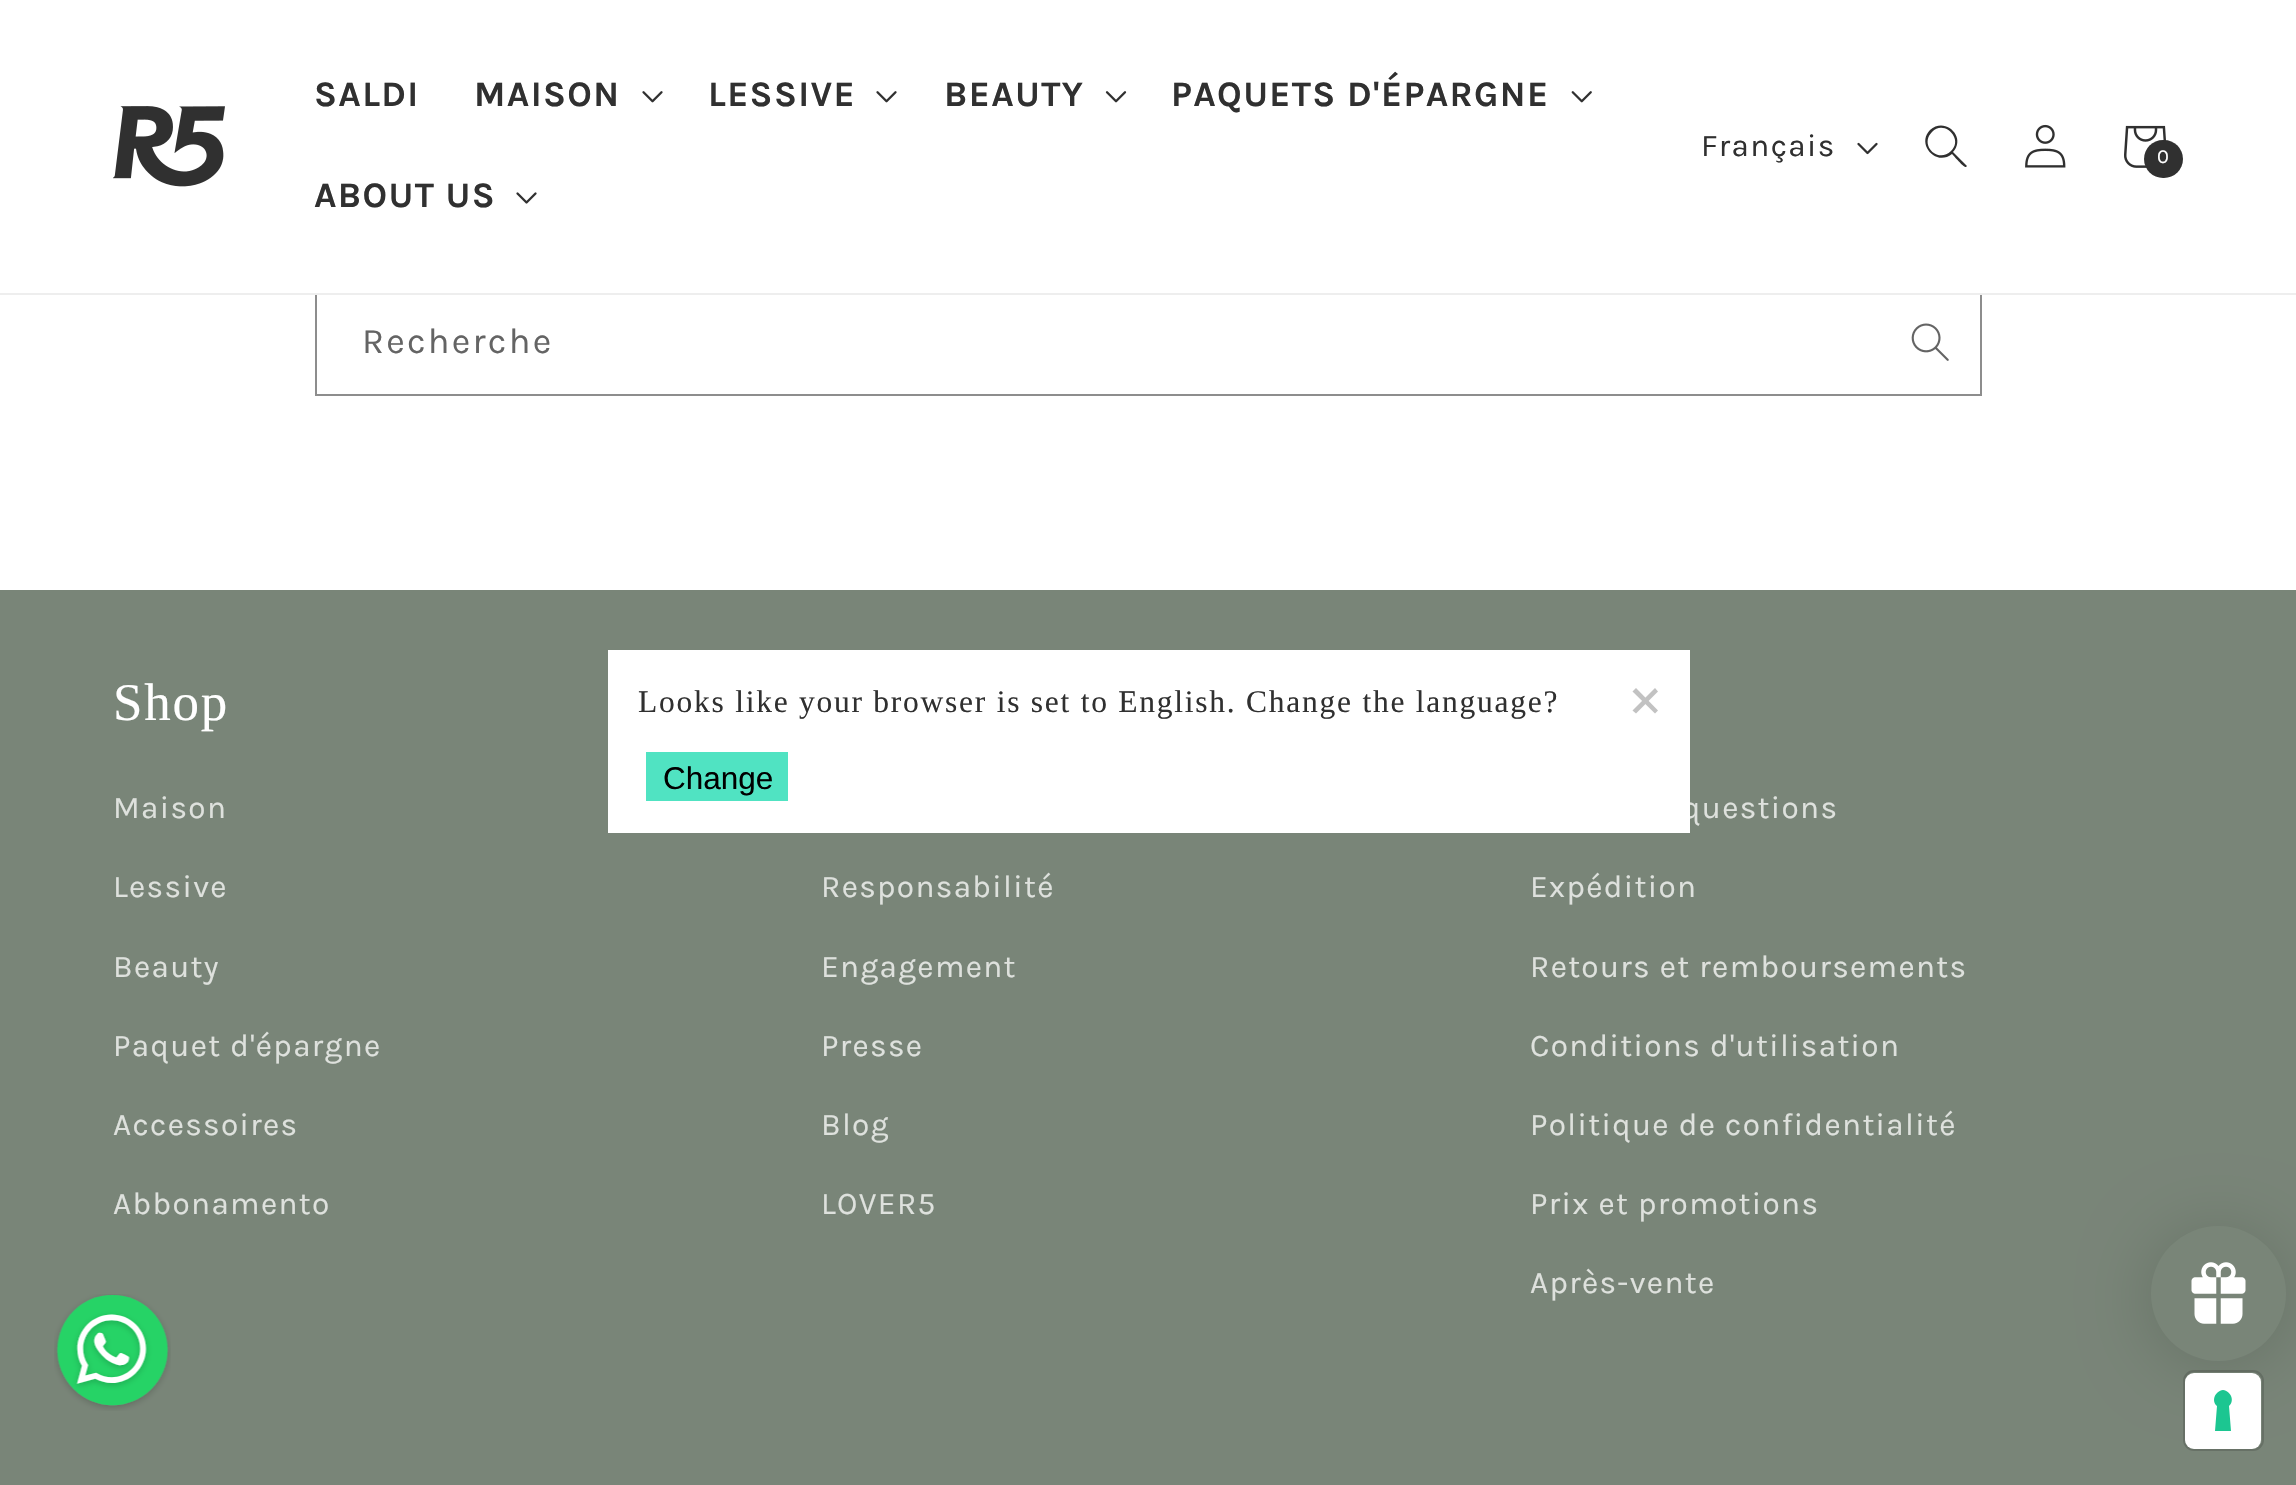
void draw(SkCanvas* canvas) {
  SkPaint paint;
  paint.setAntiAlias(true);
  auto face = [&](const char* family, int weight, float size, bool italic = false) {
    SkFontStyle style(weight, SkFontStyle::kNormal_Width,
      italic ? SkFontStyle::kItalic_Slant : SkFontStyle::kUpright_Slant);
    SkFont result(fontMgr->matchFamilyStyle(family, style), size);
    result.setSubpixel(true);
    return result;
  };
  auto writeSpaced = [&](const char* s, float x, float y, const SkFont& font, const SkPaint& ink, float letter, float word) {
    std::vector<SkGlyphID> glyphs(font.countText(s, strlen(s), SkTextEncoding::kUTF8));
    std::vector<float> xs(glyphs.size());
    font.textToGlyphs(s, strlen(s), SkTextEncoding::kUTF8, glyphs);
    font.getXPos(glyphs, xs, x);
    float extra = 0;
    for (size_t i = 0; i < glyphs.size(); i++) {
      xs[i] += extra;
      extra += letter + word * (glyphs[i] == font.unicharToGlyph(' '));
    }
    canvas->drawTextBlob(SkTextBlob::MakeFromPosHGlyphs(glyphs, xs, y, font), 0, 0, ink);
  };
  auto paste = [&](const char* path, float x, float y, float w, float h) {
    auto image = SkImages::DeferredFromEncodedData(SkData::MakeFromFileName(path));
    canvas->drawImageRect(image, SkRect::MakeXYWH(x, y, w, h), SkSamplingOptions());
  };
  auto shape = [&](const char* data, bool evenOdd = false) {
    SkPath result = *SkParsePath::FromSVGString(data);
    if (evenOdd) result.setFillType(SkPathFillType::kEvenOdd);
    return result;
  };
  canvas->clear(0xffffffff);
  paste("img/9.png", 1911, 323, 38, 38);
  paint.setStroke(true);
  paint.setStrokeWidth(2);
  paint.setColor(0xff8d8d8d);
  canvas->drawRect(SkRect::MakeXYWH(316, 291, 1665, 104), paint);
  paint.setStroke(false);
  paint.setColor(0xffffffff);
  canvas->drawRect(SkRect::MakeXYWH(315, 290, 1667, 3), paint);
  paint.setColor(0xffeeeeee);
  canvas->drawRect(SkRect::MakeXYWH(0, 293, 2296, 2), paint);
  paste("img/1.png", 113, 106, 112, 81);
  paste("img/2.png", 642, 91, 21, 12);
  paste("img/2.png", 876, 91, 21, 12);
  paste("img/3.png", 1105, 91, 22, 12);
  paste("img/4.png", 1571, 91, 21, 12);
  paste("img/5.png", 516, 192, 21, 12);
  paste("img/6.png", 1857, 142, 21, 13);
  paint.setColor(0xff303030);
  canvas->drawPath(shape("M1951 151C1938 164 1919 145 1932 132C1944 119 1964 139 1951 151ZM1952 154C1936 167 1916 144 1930 130C1945 116 1967 137 1953 152L1967 166L1966 167C1964 168 1954 156 1952 154Z", true), paint);
  paste("img/7.png", 2025, 124, 41, 44);
  paste("img/8.png", 2124, 125, 42, 43);
  canvas->drawRoundRect(SkRect::MakeXYWH(2144, 140, 39, 38), 19, 19, paint);
  paint.setColor(0xff798578);
  canvas->drawRect(SkRect::MakeXYWH(0, 590, 2296, 895), paint);
  paste("img/10.png", 54, 1294, 117, 117);
  paint.setColor(0x26000000);
  paint.setMaskFilter(SkMaskFilter::MakeBlur(kNormal_SkBlurStyle, 34));
  canvas->drawRoundRect(SkRect::MakeXYWH(2151, 1231, 135, 135), 67.5f, 67.5f, paint);
  paint.setMaskFilter(nullptr);
  paint.setColor(0xff798578);
  canvas->drawCircle(2218.5f, 1293.5f, 67.5f, paint);
  paste("img/11.png", 2191, 1262, 55, 62);
  paint.setStroke(true);
  paint.setColor(0x26000000);
  canvas->drawRoundRect(SkRect::MakeXYWH(2184, 1371, 79, 79), 10, 10, paint);
  paint.setStroke(false);
  paint.setColor(0xffffffff);
  canvas->drawRoundRect(SkRect::MakeXYWH(2185, 1373, 76, 76), 9, 9, paint);
  paint.setColor(0xff1cc691);
  canvas->drawPath(shape("M2223 1390C2231 1391 2235 1401 2229 1406L2231 1431H2215L2217 1406C2211 1401 2215 1391 2223 1390Z", true), paint);
  auto f0 = face("Karla", 700, 36);
  paint.setColor(0xff303030);
  {
    const struct { const char* s; float x, y; } items[] = {
      {"SALDI", 314, 106},
      {"MAISON", 474, 106},
      {"LESSIVE", 708, 106},
      {"BEAUTY", 944, 106},
      {"PAQUETS D'ÉPARGNE", 1171, 106},
      {"ABOUT US", 314, 207},
    };
    for (auto [s, x, y] : items) {
      writeSpaced(s, x, y, f0, paint, 1.35f, 0);
    }
  }
  auto f1 = face("Karla", 400, 31.5f);
  writeSpaced("Français", 1701, 156, f1, paint, 1.35f, 0);
  auto f2 = face("Karla", 400, 20);
  paint.setColor(0xffffffff);
  writeSpaced("0", 2157, 163, f2, paint, 1.35f, 0);
  auto f3 = face("Karla", 400, 36);
  paint.setColor(0xff646464);
  writeSpaced("Recherche", 362, 353, f3, paint, 2.25f, 0);
  auto f4 = face("Liberation Serif", 400, 53);
  paint.setColor(0xffffffff);
  writeSpaced("Shop", 113, 720, f4, paint, 1.75f, 0);
  paint.setColor(0xffdee1dd);
  {
    const struct { const char* s; float x, y; } items[] = {
      {"Maison", 113, 818},
      {"Lessive", 113, 897},
      {"Beauty", 113, 977},
      {"Paquet d'épargne", 113, 1056},
      {"Accessoires", 113, 1135},
      {"Abbonamento", 113, 1214},
      {"Responsabilité", 821, 897},
      {"Engagement", 821, 977},
      {"Presse", 821, 1056},
      {"Blog", 821, 1135},
      {"LOVER5", 821, 1214},
      {"questions", 1682, 818},
      {"Expédition", 1530, 897},
      {"Retours et remboursements", 1530, 977},
      {"Conditions d'utilisation", 1530, 1056},
      {"Politique de confidentialité", 1530, 1135},
      {"Prix et promotions", 1530, 1214},
      {"Après-vente", 1530, 1293},
    };
    for (auto [s, x, y] : items) {
      writeSpaced(s, x, y, f1, paint, 1.35f, 0);
    }
  }
  paint.setColor(0xffffffff);
  canvas->drawRect(SkRect::MakeXYWH(608, 650, 1082, 183), paint);
  auto f5 = face("Liberation Serif", 400, 31.5f);
  paint.setColor(0xff303030);
  writeSpaced("Looks like your browser is set to English. Change the language?", 638, 712, f5, paint, 1.75f, 0);
  paint.setColor(0xffc2c2c2);
  canvas->drawPath(shape("M1655 688L1658 691.5L1636 713.5L1632.5 710.5Z"), paint);
  canvas->drawPath(shape("M1632.5 691.5L1636 688L1658 710.5L1655 713.5Z"), paint);
  paint.setColor(0xff50e3c2);
  canvas->drawRect(SkRect::MakeXYWH(646, 752, 142, 49), paint);
  auto f6 = face("Liberation Sans", 400, 31.5f);
  paint.setColor(0xff000000);
  canvas->drawString("Change", 663, 789, f6, paint);
}
